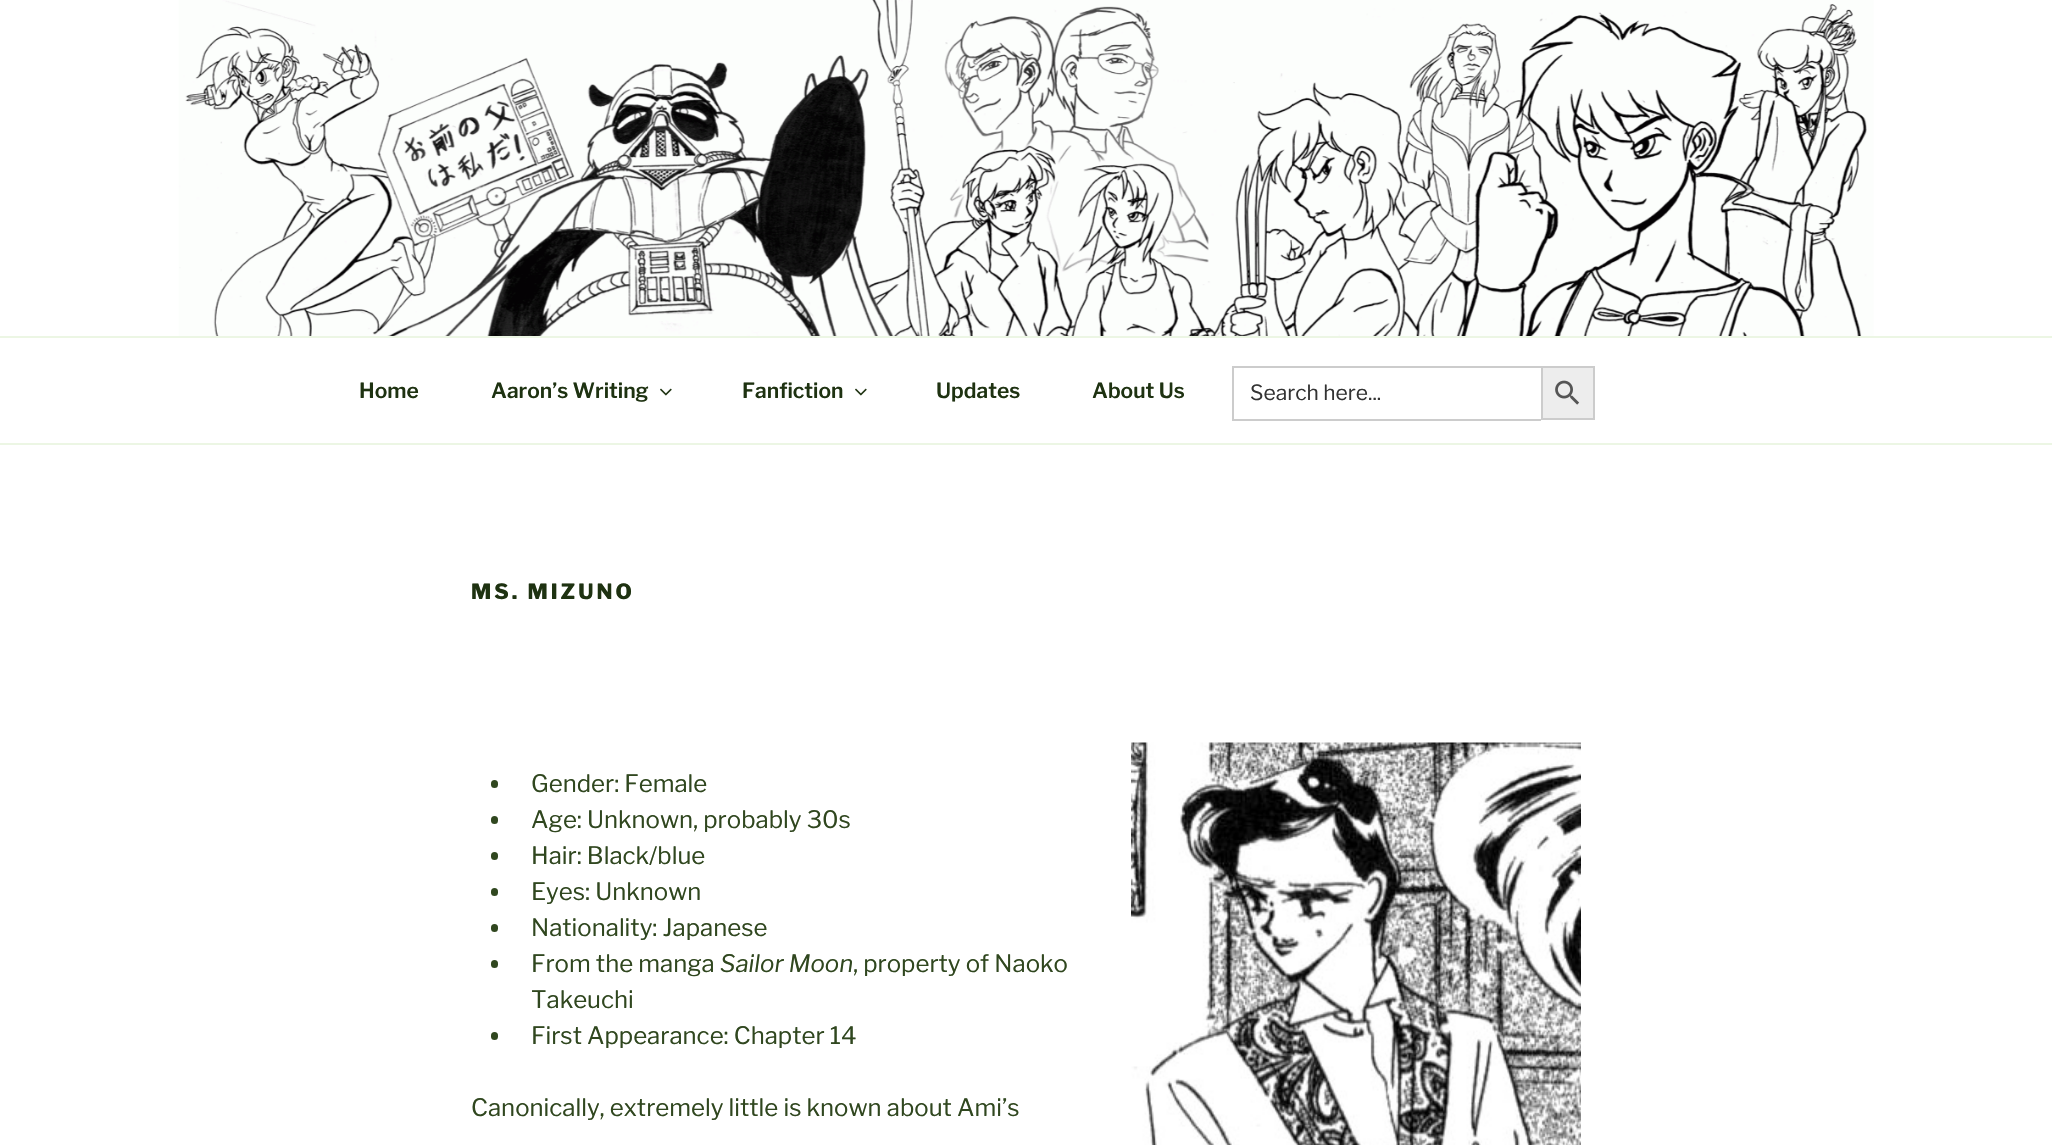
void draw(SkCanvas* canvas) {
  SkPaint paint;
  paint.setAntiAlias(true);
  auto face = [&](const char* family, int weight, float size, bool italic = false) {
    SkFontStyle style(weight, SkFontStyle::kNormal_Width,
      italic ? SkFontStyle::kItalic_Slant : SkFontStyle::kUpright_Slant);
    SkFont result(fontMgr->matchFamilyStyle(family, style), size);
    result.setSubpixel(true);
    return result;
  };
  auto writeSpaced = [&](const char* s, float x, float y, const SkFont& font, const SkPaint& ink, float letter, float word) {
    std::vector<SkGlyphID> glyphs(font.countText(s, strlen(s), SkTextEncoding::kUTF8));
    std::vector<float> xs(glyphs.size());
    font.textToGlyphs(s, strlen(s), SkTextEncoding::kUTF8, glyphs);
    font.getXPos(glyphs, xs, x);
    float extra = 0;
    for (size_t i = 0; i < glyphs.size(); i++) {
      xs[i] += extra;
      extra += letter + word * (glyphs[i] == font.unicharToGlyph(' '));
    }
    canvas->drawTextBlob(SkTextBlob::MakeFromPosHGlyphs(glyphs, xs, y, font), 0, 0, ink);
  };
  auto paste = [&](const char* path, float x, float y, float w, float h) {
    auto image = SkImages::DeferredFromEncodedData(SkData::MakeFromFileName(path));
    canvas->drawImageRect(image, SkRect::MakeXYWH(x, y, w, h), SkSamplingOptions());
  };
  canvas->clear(0xffffffff);
  paste("img/1.png", 178, 0, 1696, 336);
  paint.setColor(0xffecf6e4);
  canvas->drawRect(SkRect::MakeXYWH(0, 336, 2052, 2), paint);
  canvas->drawRect(SkRect::MakeXYWH(0, 443, 2052, 2), paint);
  paste("img/2.png", 660, 388, 12, 8);
  paste("img/2.png", 855, 388, 12, 8);
  {
    const struct { float x, y, w, h; SkColor color; } items[] = {
      {1232, 366, 309, 2, 0xffcccccc},
      {1232, 419, 309, 2, 0xffcccccc},
      {1232, 366, 2, 54, 0xffcccccc},
    };
    for (auto [x, y, w, h, color] : items) {
      paint.setColor(color);
      canvas->drawRect(SkRect::MakeXYWH(x, y, w, h), paint);
    }
  }
  paint.setColor(0xffededed);
  canvas->drawRect(SkRect::MakeXYWH(1542, 367, 52, 52), paint);
  paint.setStroke(true);
  paint.setStrokeWidth(2);
  paint.setColor(0xffcccccc);
  canvas->drawRect(SkRect::MakeXYWH(1542, 367, 52, 52), paint);
  paste("img/3.png", 1555, 380, 25, 25);
  paint.setStroke(false);
  paint.setColor(0xff30471f);
  canvas->drawRoundRect(SkRect::MakeXYWH(491, 780, 7, 8), 3.5f, 3.5f, paint);
  canvas->drawRoundRect(SkRect::MakeXYWH(491, 816, 7, 8), 3.5f, 3.5f, paint);
  canvas->drawRoundRect(SkRect::MakeXYWH(491, 852, 7, 8), 3.5f, 3.5f, paint);
  canvas->drawRoundRect(SkRect::MakeXYWH(491, 888, 7, 8), 3.5f, 3.5f, paint);
  canvas->drawRoundRect(SkRect::MakeXYWH(491, 924, 7, 8), 3.5f, 3.5f, paint);
  canvas->drawRoundRect(SkRect::MakeXYWH(491, 960, 7, 8), 3.5f, 3.5f, paint);
  canvas->drawRoundRect(SkRect::MakeXYWH(491, 1032, 7, 8), 3.5f, 3.5f, paint);
  paste("img/4.png", 1131, 742, 450, 403);
  auto f0 = face("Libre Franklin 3", 100, 21);
  paint.setColor(0xff1e3211);
  {
    const struct { const char* s; float x, y; } items[] = {
      {"Home", 359, 398},
      {"Aaron’s Writing", 491, 398},
      {"Fanfiction", 742, 398},
      {"Updates", 936, 398},
      {"About Us", 1092, 398},
    };
    for (auto [s, x, y] : items) {
      canvas->drawString(s, x, y, f0, paint);
    }
  }
  auto f1 = face("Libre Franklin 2", 100, 21);
  paint.setColor(0xff333333);
  canvas->drawString("Search here...", 1250, 400, f1, paint);
  auto f2 = face("Libre Franklin", 100, 21);
  paint.setColor(0xff1e3211);
  writeSpaced("MS. MIZUNO", 471, 599, f2, paint, 3, 0);
  auto f3 = face("Libre Franklin 2", 100, 24);
  paint.setColor(0xff30471f);
  {
    const struct { const char* s; float x, y; } items[] = {
      {"Gender: Female", 531, 792},
      {"Age: Unknown, probably 30s", 531, 828},
      {"Hair: Black/blue", 531, 864},
      {"Eyes: Unknown", 531, 900},
      {"Nationality: Japanese", 531, 936},
      {"From the manga", 531, 972},
    };
    for (auto [s, x, y] : items) {
      canvas->drawString(s, x, y, f3, paint);
    }
  }
  auto f4 = face("Libre Franklin", 100, 24, true);
  canvas->drawString("Sailor Moon", 720, 972, f4, paint);
  {
    const struct { const char* s; float x, y; } items[] = {
      {", property of Naoko", 853, 972},
      {"Takeuchi", 531, 1008},
      {"First Appearance: Chapter 14", 531, 1044},
      {"Canonically, extremely little is known about Ami’s", 471, 1116},
    };
    for (auto [s, x, y] : items) {
      canvas->drawString(s, x, y, f3, paint);
    }
  }
}
